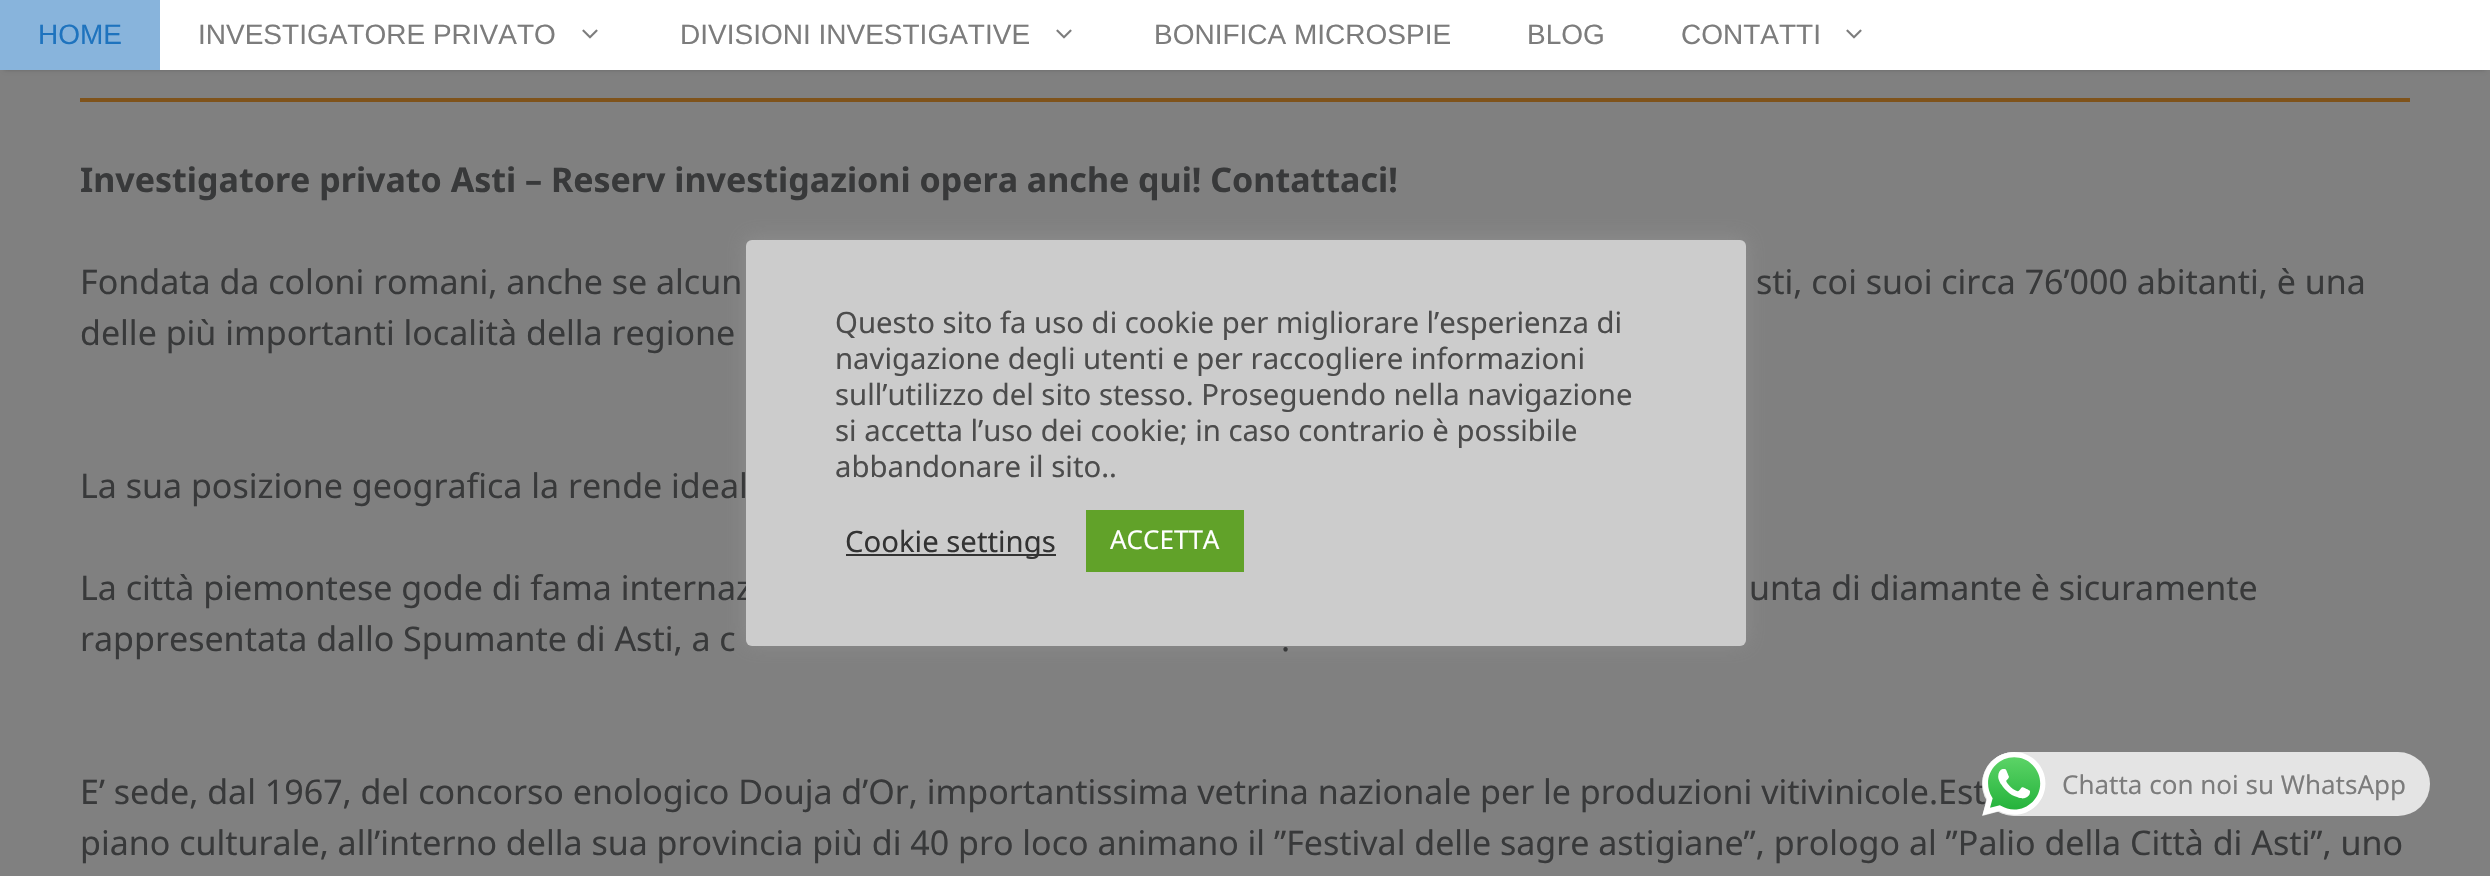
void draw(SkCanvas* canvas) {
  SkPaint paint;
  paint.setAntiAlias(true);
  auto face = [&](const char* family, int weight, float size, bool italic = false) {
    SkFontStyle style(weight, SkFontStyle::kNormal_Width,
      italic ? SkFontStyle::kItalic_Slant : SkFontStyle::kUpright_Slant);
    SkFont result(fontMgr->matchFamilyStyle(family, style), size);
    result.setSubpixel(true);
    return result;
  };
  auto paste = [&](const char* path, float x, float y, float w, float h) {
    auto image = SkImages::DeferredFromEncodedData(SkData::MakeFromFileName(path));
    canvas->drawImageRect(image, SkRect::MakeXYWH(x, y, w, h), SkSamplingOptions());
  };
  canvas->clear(0xff808080);
  paint.setColor(0x33000000);
  paint.setMaskFilter(SkMaskFilter::MakeBlur(kNormal_SkBlurStyle, 2));
  canvas->drawRect(SkRect::MakeXYWH(4, 8, 2482, 62), paint);
  paint.setMaskFilter(nullptr);
  paint.setColor(0xffffffff);
  canvas->drawRect(SkRect::MakeXYWH(160, 0, 2330, 70), paint);
  paint.setColor(0xff88b4dc);
  canvas->drawRect(SkRect::MakeXYWH(0, 0, 160, 70), paint);
  paste("img/1.png", 582, 29, 16, 10);
  paste("img/1.png", 1056, 29, 16, 10);
  paste("img/1.png", 1846, 29, 16, 10);
  paint.setColor(0xff7f531b);
  canvas->drawRect(SkRect::MakeXYWH(80, 98, 2330, 4), paint);
  paint.setColor(0x4dacabab);
  paint.setMaskFilter(SkMaskFilter::MakeBlur(kNormal_SkBlurStyle, 10));
  canvas->drawRoundRect(SkRect::MakeXYWH(746, 238, 1000, 406), 6, 6, paint);
  paint.setMaskFilter(nullptr);
  auto f0 = face("Liberation Sans", 400, 28);
  paint.setColor(0xff1e73be);
  canvas->drawString("HOME", 38, 44, f0, paint);
  paint.setColor(0xff7c7c7c);
  {
    const struct { const char* s; float x, y; } items[] = {
      {"INVESTIGATORE PRIVATO", 198, 44},
      {"DIVISIONI INVESTIGATIVE", 680, 44},
      {"BONIFICA MICROSPIE", 1154, 44},
      {"BLOG", 1527, 44},
      {"CONTATTI", 1681, 44},
    };
    for (auto [s, x, y] : items) {
      canvas->drawString(s, x, y, f0, paint);
    }
  }
  auto f1 = face("Noto Sans", 700, 34);
  paint.setColor(0xff38393a);
  canvas->drawString("Investigatore privato Asti – Reserv investigazioni opera anche qui! Contattaci!", 80, 192, f1, paint);
  auto f2 = face("Noto Sans", 400, 34);
  {
    const struct { const char* s; float x, y; } items[] = {
      {"Fondata da coloni romani, anche se alcun", 80, 294},
      {"sti, coi suoi circa 76’000 abitanti, è una", 1756, 294},
      {"delle più importanti località della regione", 80, 345},
      {"La sua posizione geografica la rende ideal", 80, 498},
      {"La città piemontese gode di fama internaz", 80, 600},
      {"unta di diamante è sicuramente", 1749, 600},
      {"rappresentata dallo Spumante di Asti, a c", 80, 651},
      {".", 1281, 651},
      {"E’ sede, dal 1967, del concorso enologico Douja d’Or, importantissima vetrina nazionale per le produzioni vitivinicole.Est", 80, 804},
      {"piano culturale, all’interno della sua provincia più di 40 pro loco animano il ”Festival delle sagre astigiane”, prologo al ”Palio della Città di Asti”, uno", 80, 855},
    };
    for (auto [s, x, y] : items) {
      canvas->drawString(s, x, y, f2, paint);
    }
  }
  paint.setColor(0xffcccccc);
  canvas->drawRoundRect(SkRect::MakeXYWH(746, 240, 1000, 406), 6, 6, paint);
  auto f3 = face("Noto Sans", 400, 29.3f);
  paint.setColor(0xff4c4c4c);
  {
    const struct { const char* s; float x, y; } items[] = {
      {"Questo sito fa uso di cookie per migliorare l’esperienza di", 835, 333},
      {"navigazione degli utenti e per raccogliere informazioni", 835, 369},
      {"sull’utilizzo del sito stesso. Proseguendo nella navigazione", 835, 405},
      {"si accetta l’uso dei cookie; in caso contrario è possibile", 835, 441},
      {"abbandonare il sito..", 835, 477},
    };
    for (auto [s, x, y] : items) {
      canvas->drawString(s, x, y, f3, paint);
    }
  }
  paint.setColor(0xff333333);
  canvas->drawRect(SkRect::MakeXYWH(846, 554, 210, 2), paint);
  canvas->drawString("Cookie settings", 845, 552, f3, paint);
  paint.setColor(0xff61a229);
  canvas->drawRect(SkRect::MakeXYWH(1086, 510, 158, 62), paint);
  auto f4 = face("Noto Sans", 400, 26);
  paint.setColor(0xffffffff);
  canvas->drawString("ACCETTA", 1110, 549, f4, paint);
  paint.setColor(0xffe4e4e4);
  canvas->drawRoundRect(SkRect::MakeXYWH(1982, 752, 448, 64), 32, 32, paint);
  paste("img/2.png", 1982, 752, 64, 64);
  paint.setColor(0xff7c7c7c);
  canvas->drawString("Chatta con noi su WhatsApp", 2062, 794, f4, paint);
}
